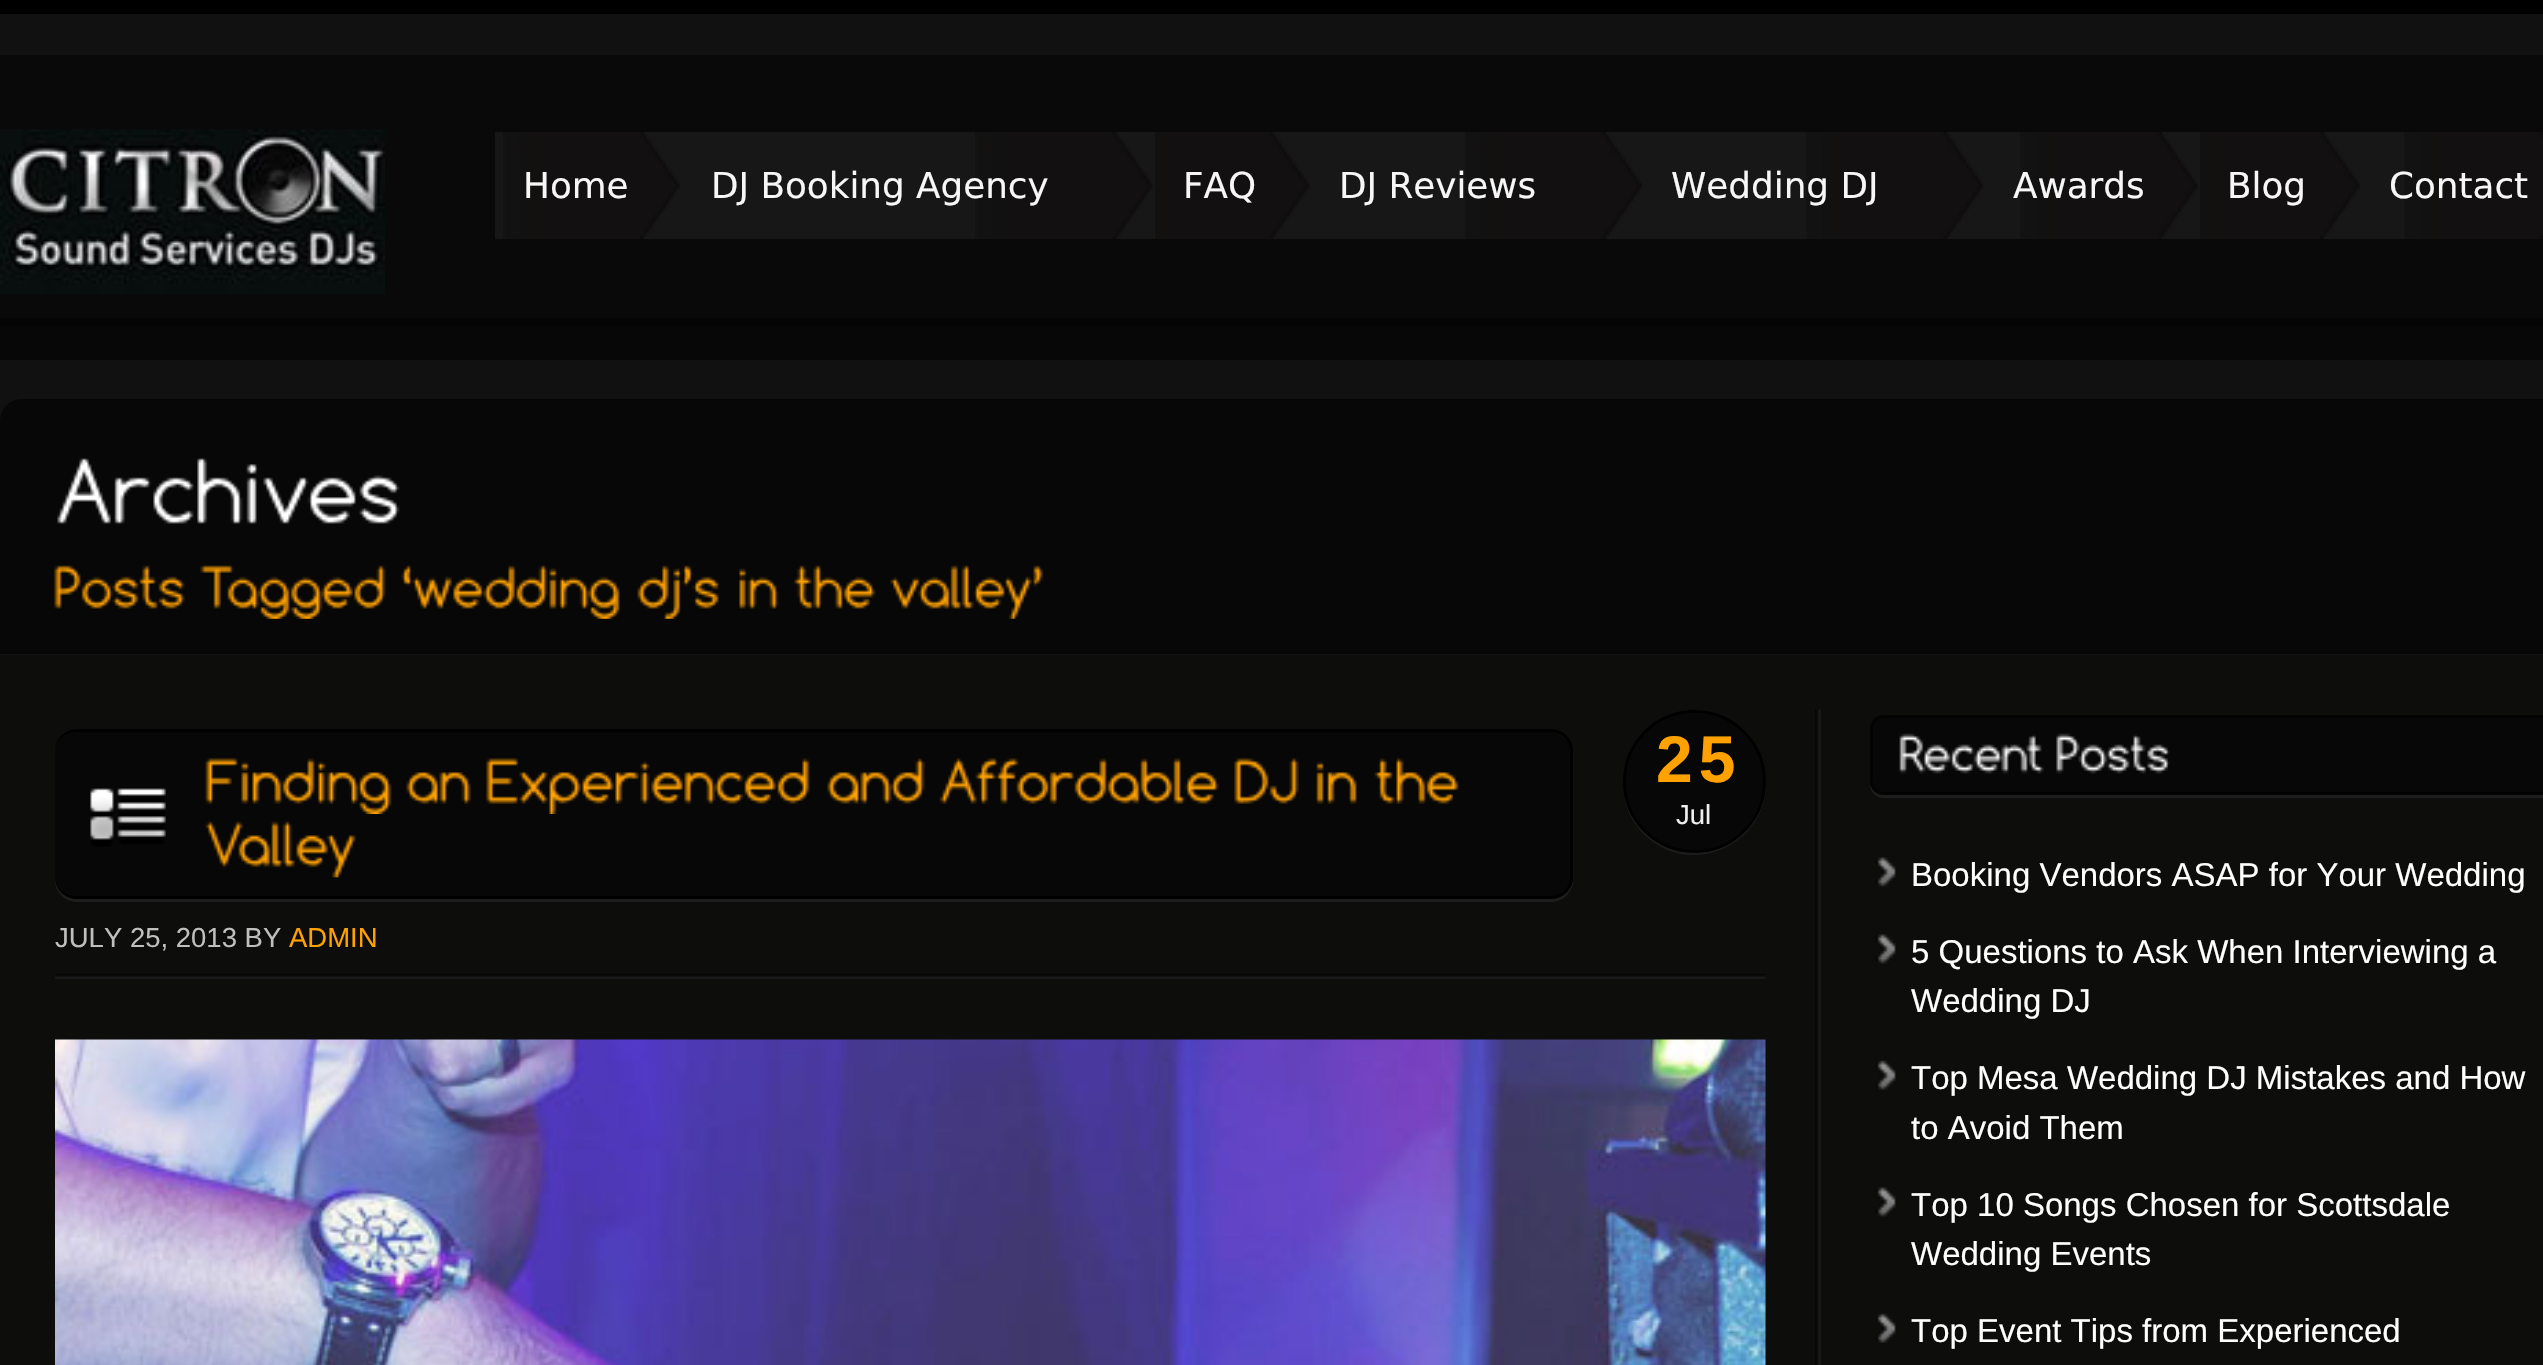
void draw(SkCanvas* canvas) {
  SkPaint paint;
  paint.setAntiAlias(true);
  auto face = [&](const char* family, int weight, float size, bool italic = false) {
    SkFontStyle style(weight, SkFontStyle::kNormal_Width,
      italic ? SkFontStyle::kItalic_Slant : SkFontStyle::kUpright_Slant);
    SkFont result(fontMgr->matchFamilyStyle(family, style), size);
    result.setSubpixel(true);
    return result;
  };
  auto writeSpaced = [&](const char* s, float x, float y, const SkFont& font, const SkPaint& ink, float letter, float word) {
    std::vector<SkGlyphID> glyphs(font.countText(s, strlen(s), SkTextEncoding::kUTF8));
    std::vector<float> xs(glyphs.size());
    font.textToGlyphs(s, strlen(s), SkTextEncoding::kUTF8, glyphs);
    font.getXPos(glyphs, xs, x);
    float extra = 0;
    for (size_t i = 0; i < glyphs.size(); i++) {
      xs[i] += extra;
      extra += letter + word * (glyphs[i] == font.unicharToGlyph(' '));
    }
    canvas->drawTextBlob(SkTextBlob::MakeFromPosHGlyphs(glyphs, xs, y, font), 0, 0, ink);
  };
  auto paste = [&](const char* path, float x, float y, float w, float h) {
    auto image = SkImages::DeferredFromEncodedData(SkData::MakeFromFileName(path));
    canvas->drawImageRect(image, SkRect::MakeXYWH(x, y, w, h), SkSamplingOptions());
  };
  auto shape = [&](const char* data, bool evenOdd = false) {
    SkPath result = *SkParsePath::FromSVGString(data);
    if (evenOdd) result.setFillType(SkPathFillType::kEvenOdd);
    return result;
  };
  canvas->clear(0xff111111);
  paste("img/1.png", 0, 55, 2543, 305);
  paint.setColor(0xff000000);
  canvas->drawRect(SkRect::MakeXYWH(0, 0, 2543, 14), paint);
  paste("img/2.png", 0, 129, 385, 165);
  paint.setColor(0xff171717);
  canvas->drawRect(SkRect::MakeXYWH(495, 132, 1909, 107), paint);
  paste("img/3.png", 503, 132, 177, 107);
  paste("img/4.png", 975, 132, 178, 107);
  paste("img/5.png", 1155, 132, 155, 107);
  paste("img/6.png", 1465, 132, 177, 107);
  paste("img/7.png", 1806, 132, 177, 107);
  paste("img/8.png", 2020, 132, 178, 107);
  paste("img/9.png", 2200, 132, 160, 107);
  paste("img/10.png", 2404, 132, 139, 107);
  paste("img/11.png", 0, 399, 2543, 255);
  paste("img/12.png", 57, 458, 343, 66);
  paste("img/13.png", 54, 565, 131, 44);
  paste("img/14.png", 200, 565, 186, 54);
  paste("img/15.png", 401, 565, 219, 54);
  paste("img/16.png", 637, 565, 82, 54);
  paste("img/17.png", 739, 568, 40, 41);
  paste("img/18.png", 794, 565, 82, 44);
  paste("img/19.png", 890, 565, 154, 54);
  paint.setColor(0xff0d0d0c);
  canvas->drawRect(SkRect::MakeXYWH(0, 655, 2543, 710), paint);
  paste("img/20.png", 1815, 709, 6, 656);
  paint.setColor(0xff1d1d1d);
  canvas->drawPath(shape("M55 877V880C55 892 65 902 77 902H1551C1563 902 1573 892 1573 880V877C1573 889 1563 899 1551 899H77C65 899 55 889 55 877Z"), paint);
  paint.setColor(0xff070707);
  canvas->drawRoundRect(SkRect::MakeXYWH(55, 729, 1518, 170), 22, 22, paint);
  paint.setColor(0xff000000);
  canvas->drawPath(shape("M77 729H1551C1563 729 1573 739 1573 751V877C1573 889 1563 899 1551 899H77C65 899 55 889 55 877V751C55 739 65 729 77 729ZM77 732H1551C1562 732 1570 740 1570 751V877C1570 888 1562 896 1551 896H77C65 896 55 888 55 877V751C55 740 65 732 77 732Z", true), paint);
  paste("img/21.png", 90, 788, 76, 59);
  paste("img/22.png", 205, 758, 187, 56);
  paste("img/23.png", 406, 772, 65, 32);
  paste("img/24.png", 486, 758, 324, 56);
  paste("img/25.png", 827, 758, 98, 46);
  paste("img/26.png", 939, 758, 280, 46);
  paste("img/27.png", 1234, 758, 65, 46);
  paste("img/28.png", 1316, 761, 41, 43);
  paste("img/29.png", 1374, 758, 85, 46);
  paste("img/30.png", 205, 821, 151, 57);
  paint.setColor(0xff1d1d1d);
  canvas->drawPath(shape("M1624 796C1627 813 1636 828 1648 838C1701 882 1779 834 1764 768C1767 782 1765 796 1760 809C1733 873 1639 864 1624 796Z"), paint);
  paint.setColor(0xff070707);
  canvas->drawCircle(1694.5f, 781.5f, 70, paint);
  paint.setStroke(true);
  paint.setStrokeWidth(3);
  paint.setColor(0xff000000);
  canvas->drawCircle(1694.5f, 781.5f, 70, paint);
  paste("img/31.png", 55, 974, 1710, 5);
  paste("img/32.png", 55, 1039, 1711, 326);
  paste("img/33.png", 1819, 709, 2, 656);
  paint.setStroke(false);
  paint.setColor(0xff1d1d1d);
  canvas->drawPath(shape("M1870 781V784C1870 792 1876 798 1884 798H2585V795H1884C1876 795 1870 789 1870 781Z"), paint);
  paint.setColor(0xff070707);
  canvas->drawPath(shape("M1884 715H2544V795H1884C1876.5 795 1870 788.5 1870 781V729C1870 721.5 1876.5 715 1884 715Z"), paint);
  paint.setColor(0xff030303);
  canvas->drawPath(shape("M1884 715H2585V795H1884C1876 795 1870 789 1870 781V729C1870 721 1876 715 1884 715ZM1884 718H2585V792H1884C1878 792 1873 787 1873 781V729C1873 723 1878 718 1884 718Z", true), paint);
  paste("img/34.png", 1899, 733, 145, 41);
  paste("img/35.png", 2056, 733, 114, 41);
  paste("img/36.png", 1875, 857, 21, 30);
  paste("img/36.png", 1875, 934, 21, 30);
  paste("img/37.png", 1876, 1060, 20, 30);
  paste("img/36.png", 1875, 1187, 21, 30);
  paste("img/38.png", 1876, 1313, 20, 30);
  auto f0 = face("DejaVu Sans", 400, 35.75f);
  paint.setColor(0xfff7f7f7);
  {
    const struct { const char* s; float x, y; } items[] = {
      {"Home", 523, 198},
      {"DJ Booking Agency", 711, 198},
      {"FAQ", 1183, 198},
      {"DJ Reviews", 1339, 198},
      {"Wedding DJ", 1671, 198},
      {"Awards", 2013, 198},
      {"Blog", 2227, 198},
      {"Contact", 2389, 198},
    };
    for (auto [s, x, y] : items) {
      canvas->drawString(s, x, y, f0, paint);
    }
  }
  auto f1 = face("Liberation Sans", 700, 66);
  paint.setColor(0xffffa200);
  writeSpaced("25", 1656, 782, f1, paint, 6, 0);
  auto f2 = face("Liberation Sans", 400, 27.5f);
  paint.setColor(0xffeeeeee);
  canvas->drawString("Jul", 1676, 824, f2, paint);
  paint.setColor(0xffbfbfbf);
  canvas->drawString("JULY 25, 2013 BY", 55, 947, f2, paint);
  paint.setColor(0xffffa200);
  canvas->drawString("ADMIN", 289, 947, f2, paint);
  auto f3 = face("Liberation Sans", 400, 33);
  paint.setColor(0xffffffff);
  {
    const struct { const char* s; float x, y; } items[] = {
      {"Booking Vendors ASAP for Your Wedding", 1911, 886},
      {"5 Questions to Ask When Interviewing a", 1911, 963},
      {"Wedding DJ", 1911, 1012},
      {"Top Mesa Wedding DJ Mistakes and How", 1911, 1089},
      {"to Avoid Them", 1911, 1139},
      {"Top 10 Songs Chosen for Scottsdale", 1911, 1216},
      {"Wedding Events", 1911, 1265},
      {"Top Event Tips from Experienced", 1911, 1342},
    };
    for (auto [s, x, y] : items) {
      canvas->drawString(s, x, y, f3, paint);
    }
  }
}
